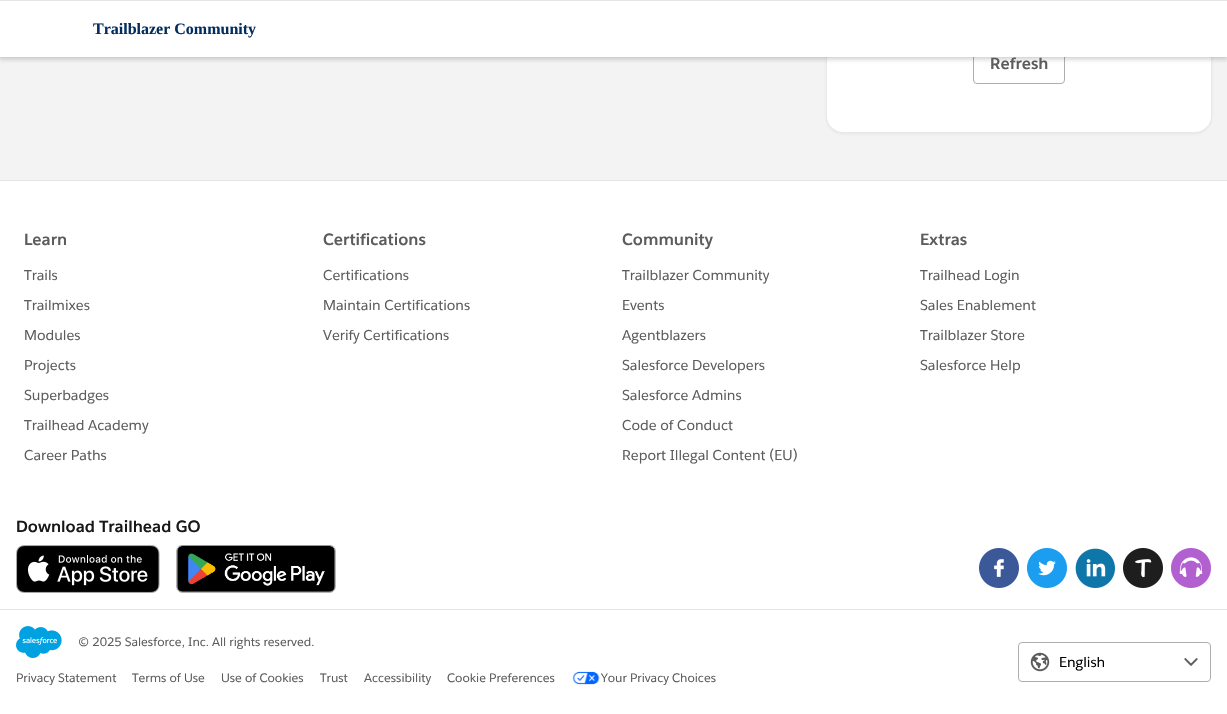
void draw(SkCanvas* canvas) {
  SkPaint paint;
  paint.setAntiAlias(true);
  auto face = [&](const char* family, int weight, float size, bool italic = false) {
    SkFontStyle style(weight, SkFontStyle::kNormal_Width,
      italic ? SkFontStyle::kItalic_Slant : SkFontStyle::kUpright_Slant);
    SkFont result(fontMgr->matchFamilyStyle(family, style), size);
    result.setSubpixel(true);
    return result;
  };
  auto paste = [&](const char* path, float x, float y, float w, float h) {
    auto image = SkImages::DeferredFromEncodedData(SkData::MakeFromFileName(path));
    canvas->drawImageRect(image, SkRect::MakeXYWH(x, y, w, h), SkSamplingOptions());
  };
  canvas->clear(0xffffffff);
  paint.setColor(0xfff3f3f3);
  canvas->drawRect(SkRect::MakeXYWH(0, 57, 1227, 123), paint);
  paint.setColor(0x0f181818);
  paint.setMaskFilter(SkMaskFilter::MakeBlur(kNormal_SkBlurStyle, 1.5f));
  canvas->drawRoundRect(SkRect::MakeXYWH(826, -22, 386, 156), 17, 17, paint);
  paint.setMaskFilter(nullptr);
  paint.setColor(0xffffffff);
  canvas->drawRoundRect(SkRect::MakeXYWH(827, -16, 384, 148), 16, 16, paint);
  paint.setStroke(true);
  paint.setStrokeWidth(1);
  paint.setColor(0xffaeaeae);
  canvas->drawRoundRect(SkRect::MakeXYWH(973.5f, 44.5f, 91, 39), 3.5f, 3.5f, paint);
  paint.setStroke(false);
  paint.setColor(0x29181818);
  paint.setMaskFilter(SkMaskFilter::MakeBlur(kNormal_SkBlurStyle, 2));
  canvas->drawRect(SkRect::MakeXYWH(-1, 1, 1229, 59), paint);
  paint.setMaskFilter(nullptr);
  paint.setColor(0x14181818);
  paint.setMaskFilter(SkMaskFilter::MakeBlur(kNormal_SkBlurStyle, 1));
  canvas->drawRect(SkRect::MakeXYWH(0, 0, 1227, 57), paint);
  paint.setMaskFilter(nullptr);
  {
    const struct { float x, y, w, h; SkColor color; } items[] = {
      {0, 1, 1227, 56, 0xffffffff},
      {0, 0, 1227, 1, 0xffe5e5e5},
      {0, 180, 1227, 1, 0xffe5e5e5},
    };
    for (auto [x, y, w, h, color] : items) {
      paint.setColor(color);
      canvas->drawRect(SkRect::MakeXYWH(x, y, w, h), paint);
    }
  }
  paste("img/1.png", 16, 545, 144, 48);
  paste("img/2.png", 176, 545, 160, 48);
  paste("img/3.png", 979, 548, 40, 40);
  paste("img/4.png", 1027, 548, 40, 40);
  paste("img/5.png", 1075, 548, 40, 40);
  paste("img/6.png", 1123, 548, 40, 40);
  paste("img/7.png", 1171, 548, 40, 40);
  canvas->drawRect(SkRect::MakeXYWH(0, 609, 1227, 1), paint);
  paste("img/8.png", 16, 626, 46, 32);
  paste("img/9.png", 572, 671, 28, 14);
  paint.setStroke(true);
  paint.setColor(0xffaeaeae);
  canvas->drawRoundRect(SkRect::MakeXYWH(1018.5f, 642.5f, 192, 39), 3.5f, 3.5f, paint);
  paste("img/10.png", 1030, 652, 20, 20);
  paste("img/11.png", 1184, 658, 14, 8);
  auto f0 = face("Liberation Serif", 700, 16);
  paint.setStroke(false);
  paint.setColor(0xff032d60);
  canvas->drawString("Trailblazer Community", 93, 34, f0, paint);
  auto f1 = face("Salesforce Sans", 700, 16);
  paint.setColor(0xff5c5c5c);
  canvas->drawString("Refresh", 990, 69, f1, paint);
  canvas->drawString("Learn", 24, 245, f1, paint);
  auto f2 = face("Salesforce Sans", 400, 14);
  {
    const struct { const char* s; float x, y; } items[] = {
      {"Trails", 24, 280},
      {"Trailmixes", 24, 310},
      {"Modules", 24, 340},
      {"Projects", 24, 370},
      {"Superbadges", 24, 400},
      {"Trailhead Academy", 24, 430},
      {"Career Paths", 24, 460},
    };
    for (auto [s, x, y] : items) {
      canvas->drawString(s, x, y, f2, paint);
    }
  }
  canvas->drawString("Certifications", 323, 245, f1, paint);
  {
    const struct { const char* s; float x, y; } items[] = {
      {"Certifications", 323, 280},
      {"Maintain Certifications", 323, 310},
      {"Verify Certifications", 323, 340},
    };
    for (auto [s, x, y] : items) {
      canvas->drawString(s, x, y, f2, paint);
    }
  }
  canvas->drawString("Community", 622, 245, f1, paint);
  {
    const struct { const char* s; float x, y; } items[] = {
      {"Trailblazer Community", 622, 280},
      {"Events", 622, 310},
      {"Agentblazers", 622, 340},
      {"Salesforce Developers", 622, 370},
      {"Salesforce Admins", 622, 400},
      {"Code of Conduct", 622, 430},
      {"Report Illegal Content (EU)", 622, 460},
    };
    for (auto [s, x, y] : items) {
      canvas->drawString(s, x, y, f2, paint);
    }
  }
  canvas->drawString("Extras", 920, 245, f1, paint);
  {
    const struct { const char* s; float x, y; } items[] = {
      {"Trailhead Login", 920, 280},
      {"Sales Enablement", 920, 310},
      {"Trailblazer Store", 920, 340},
      {"Salesforce Help", 920, 370},
    };
    for (auto [s, x, y] : items) {
      canvas->drawString(s, x, y, f2, paint);
    }
  }
  paint.setColor(0xff181818);
  canvas->drawString("Download Trailhead GO", 16, 532, f1, paint);
  auto f3 = face("Salesforce Sans", 400, 12);
  paint.setColor(0xff5c5c5c);
  {
    const struct { const char* s; float x, y; } items[] = {
      {"© 2025 Salesforce, Inc. All rights reserved.", 78, 646},
      {"Privacy Statement", 16, 682},
      {"Terms of Use", 132, 682},
      {"Use of Cookies", 221, 682},
      {"Trust", 320, 682},
      {"Accessibility", 364, 682},
      {"Cookie Preferences", 447, 682},
      {"Your Privacy Choices", 601, 682},
    };
    for (auto [s, x, y] : items) {
      canvas->drawString(s, x, y, f3, paint);
    }
  }
  paint.setColor(0xff000000);
  canvas->drawString("English", 1059, 667, f2, paint);
}
